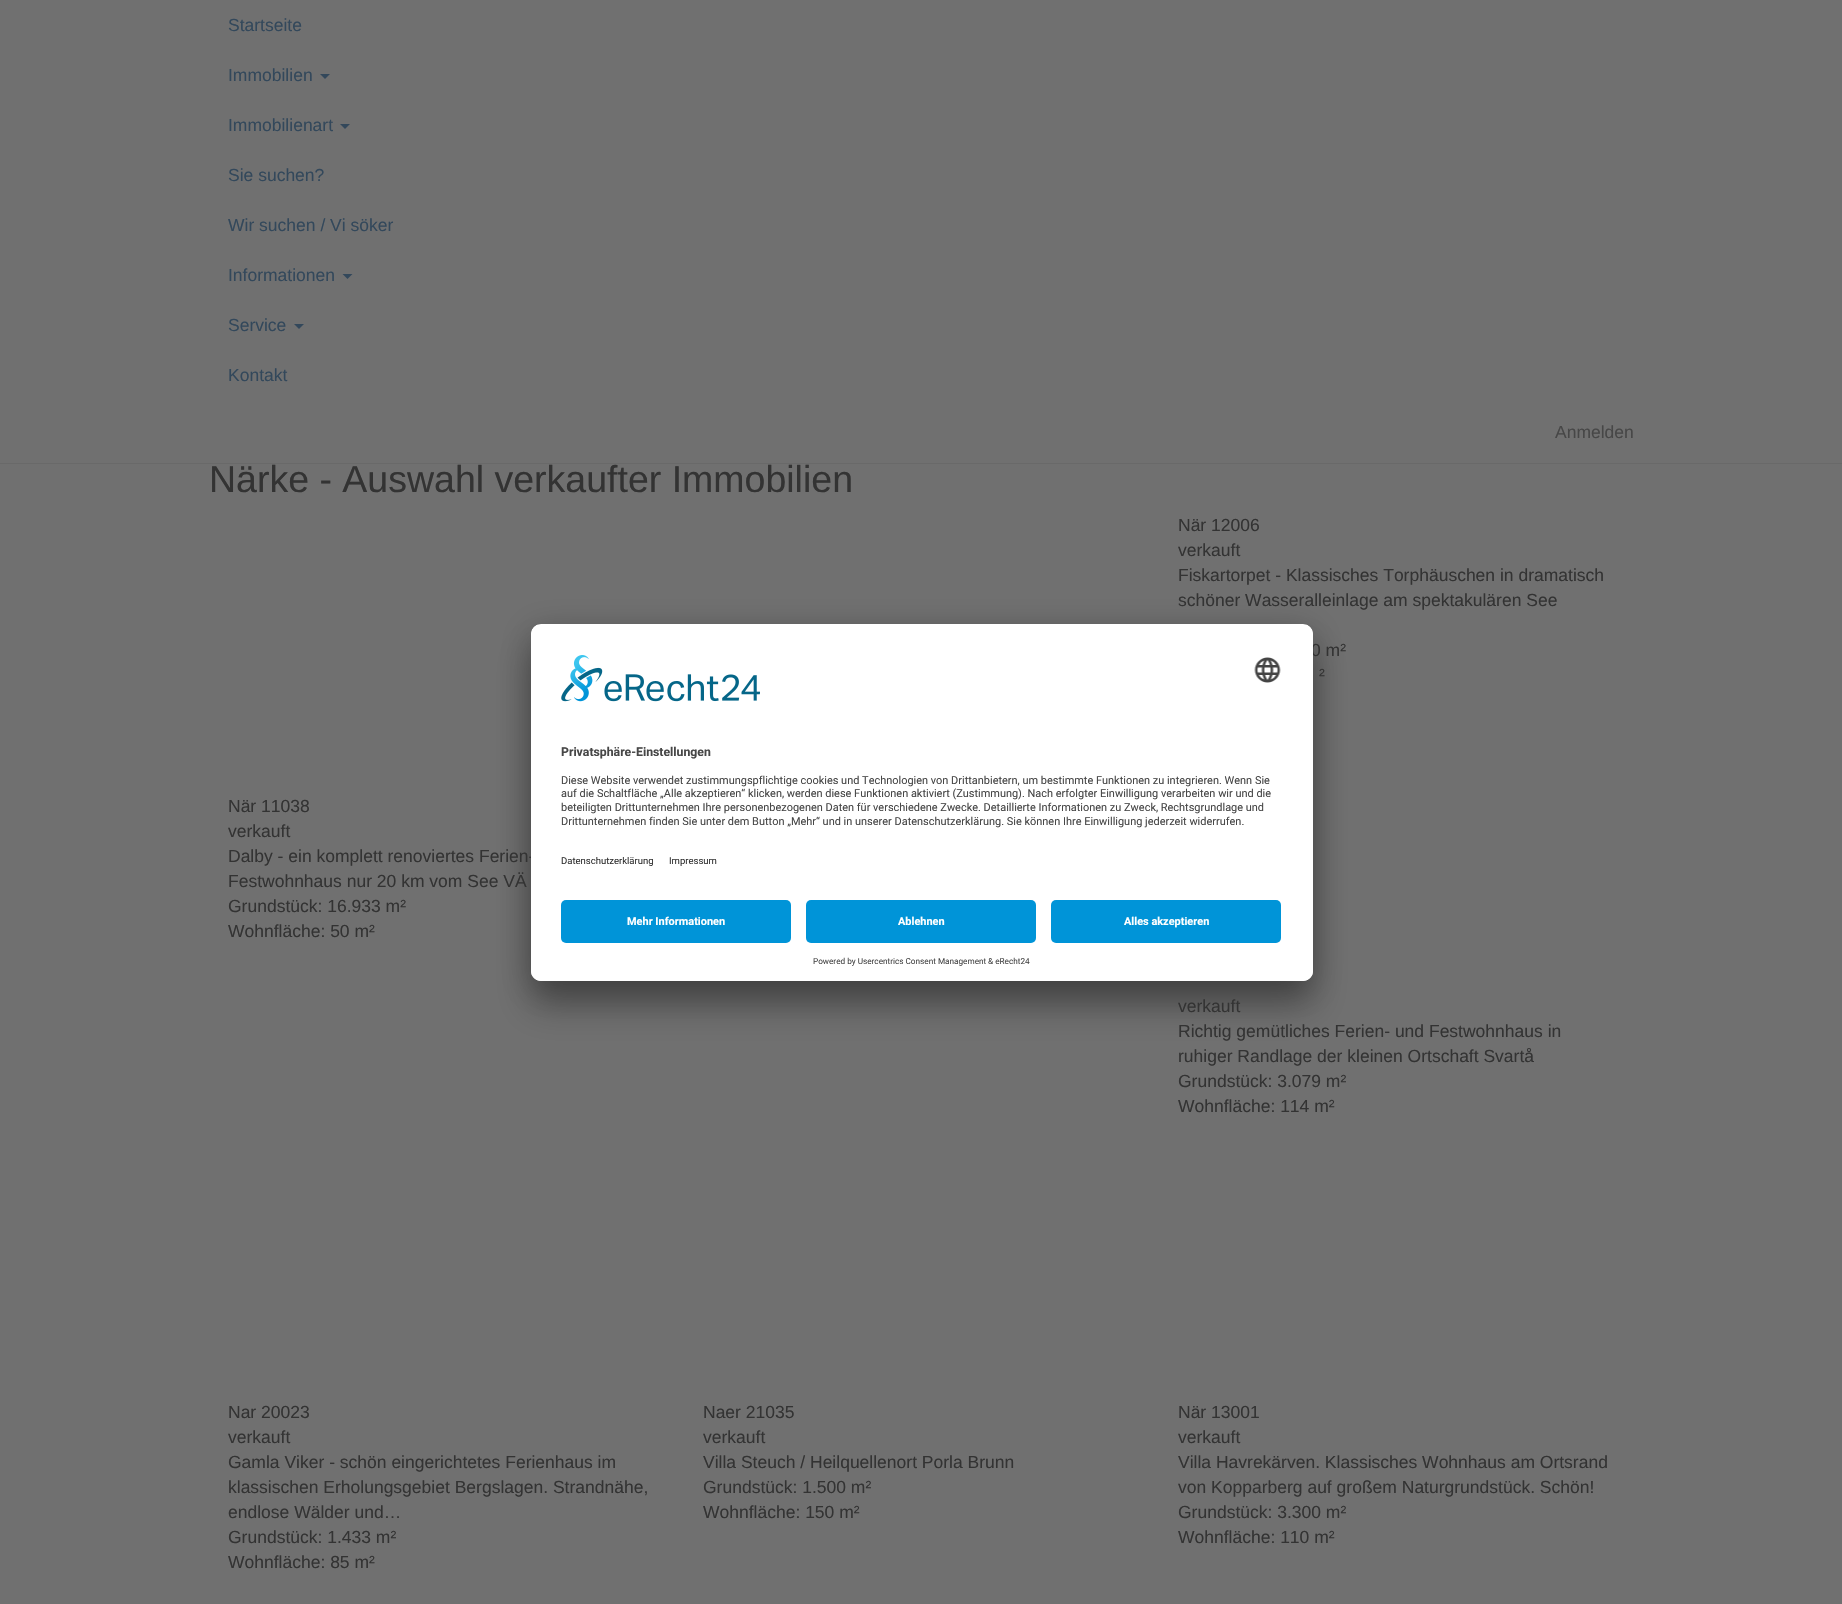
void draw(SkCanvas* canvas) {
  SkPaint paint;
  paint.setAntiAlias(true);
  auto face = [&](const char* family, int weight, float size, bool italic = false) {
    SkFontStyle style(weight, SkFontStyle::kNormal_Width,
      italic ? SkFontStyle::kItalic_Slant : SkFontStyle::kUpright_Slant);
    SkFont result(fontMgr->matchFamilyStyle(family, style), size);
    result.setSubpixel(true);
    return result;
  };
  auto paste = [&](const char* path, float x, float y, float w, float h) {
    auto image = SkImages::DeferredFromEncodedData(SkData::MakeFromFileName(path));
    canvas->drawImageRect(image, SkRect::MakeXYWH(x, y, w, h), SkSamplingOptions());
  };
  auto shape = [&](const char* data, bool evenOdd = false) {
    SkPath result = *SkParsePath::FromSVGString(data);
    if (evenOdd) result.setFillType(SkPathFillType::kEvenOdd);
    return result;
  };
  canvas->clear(0xff707070);
  paint.setColor(0xff696969);
  canvas->drawRect(SkRect::MakeXYWH(0, 463, 1842, 1), paint);
  paint.setColor(0xff33485b);
  canvas->drawPath(shape("M320 74H330L325 79Z"), paint);
  canvas->drawPath(shape("M340 124H350L345 129Z"), paint);
  canvas->drawPath(shape("M342.5 274H352.5L347.5 279Z"), paint);
  canvas->drawPath(shape("M294 324H304L299 329Z"), paint);
  paint.setColor(0x4d000000);
  paint.setMaskFilter(SkMaskFilter::MakeBlur(kNormal_SkBlurStyle, 17.5f));
  canvas->drawRoundRect(SkRect::MakeXYWH(531, 649, 782, 357), 10, 10, paint);
  paint.setMaskFilter(nullptr);
  paint.setColor(0x38000000);
  paint.setMaskFilter(SkMaskFilter::MakeBlur(kNormal_SkBlurStyle, 16));
  canvas->drawRoundRect(SkRect::MakeXYWH(531, 630, 782, 358), 10, 10, paint);
  paint.setMaskFilter(nullptr);
  auto f0 = face("Liberation Sans", 400, 17.5f);
  paint.setColor(0xff33485b);
  {
    const struct { const char* s; float x, y; } items[] = {
      {"Startseite", 228, 31},
      {"Immobilien", 228, 81},
      {"Immobilienart", 228, 131},
      {"Sie suchen?", 228, 181},
      {"Wir suchen / Vi söker", 228, 231},
      {"Informationen", 228, 281},
      {"Service", 228, 331},
      {"Kontakt", 228, 381},
    };
    for (auto [s, x, y] : items) {
      canvas->drawString(s, x, y, f0, paint);
    }
  }
  paint.setColor(0xff474747);
  canvas->drawString("Anmelden", 1555, 438, f0, paint);
  auto f1 = face("Liberation Sans", 400, 37.5f);
  paint.setColor(0xff333333);
  canvas->drawString("Närke - Auswahl verkaufter Immobilien", 209, 492, f1, paint);
  {
    const struct { const char* s; float x, y; } items[] = {
      {"När 12006", 1178, 531},
      {"verkauft", 1178, 556},
      {"Fiskartorpet - Klassisches Torphäuschen in dramatisch", 1178, 581},
      {"schöner Wasseralleinlage am spektakulären See", 1178, 606},
      {"0 m²", 1311, 656},
      {"²", 1319, 681},
      {"När 11038", 228, 812},
      {"verkauft", 228, 837},
      {"Dalby - ein komplett renoviertes Ferien-", 228, 862},
      {"Festwohnhaus nur 20 km vom See VÄ", 228, 887},
      {"Grundstück: 16.933 m²", 228, 912},
      {"Wohnfläche: 50 m²", 228, 937},
      {"verkauft", 1178, 1012},
      {"Richtig gemütliches Ferien- und Festwohnhaus in", 1178, 1037},
      {"ruhiger Randlage der kleinen Ortschaft Svartå", 1178, 1062},
      {"Grundstück: 3.079 m²", 1178, 1087},
      {"Wohnfläche: 114 m²", 1178, 1112},
      {"Nar 20023", 228, 1418},
      {"verkauft", 228, 1443},
      {"Gamla Viker - schön eingerichtetes Ferienhaus im", 228, 1468},
      {"klassischen Erholungsgebiet Bergslagen. Strandnähe,", 228, 1493},
      {"endlose Wälder und…", 228, 1518},
      {"Grundstück: 1.433 m²", 228, 1543},
      {"Wohnfläche: 85 m²", 228, 1568},
      {"Naer 21035", 703, 1418},
      {"verkauft", 703, 1443},
      {"Villa Steuch / Heilquellenort Porla Brunn", 703, 1468},
      {"Grundstück: 1.500 m²", 703, 1493},
      {"Wohnfläche: 150 m²", 703, 1518},
      {"När 13001", 1178, 1418},
      {"verkauft", 1178, 1443},
      {"Villa Havrekärven. Klassisches Wohnhaus am Ortsrand", 1178, 1468},
      {"von Kopparberg auf großem Naturgrundstück. Schön!", 1178, 1493},
      {"Grundstück: 3.300 m²", 1178, 1518},
      {"Wohnfläche: 110 m²", 1178, 1543},
    };
    for (auto [s, x, y] : items) {
      canvas->drawString(s, x, y, f0, paint);
    }
  }
  paint.setColor(0xffffffff);
  canvas->drawRoundRect(SkRect::MakeXYWH(531, 624, 782, 357), 10, 10, paint);
  canvas->save();
  canvas->clipPath(shape("M541 624H1303C1308.5 624 1313 628.5 1313 634V971C1313 976.5 1308.5 981 1303 981H541C535.5 981 531 976.5 531 971V634C531 628.5 535.5 624 541 624Z"), true);
  canvas->clipPath(shape("M541 624H1303C1308.5 624 1313 628.5 1313 634V890H531V634C531 628.5 535.5 624 541 624Z"), true);
  canvas->drawRect(SkRect::MakeXYWH(531, 625, 782, 265), paint);
  canvas->restore();
  paste("img/1.png", 561, 655, 199, 47);
  paste("img/2.png", 1254, 657, 27, 26);
  auto f2 = face("Roboto", 700, 12.25f);
  paint.setColor(0xff474747);
  canvas->drawString("Privatsphäre-Einstellungen", 561, 756, f2, paint);
  auto f3 = face("Roboto", 400, 10.95f);
  {
    const struct { const char* s; float x, y; } items[] = {
      {"Diese Website verwendet zustimmungspflichtige cookies und Technologien von Drittanbietern, um bestimmte Funktionen zu integrieren. Wenn Sie", 561, 784},
      {"auf die Schaltfläche „Alle akzeptieren“ klicken, werden diese Funktionen aktiviert (Zustimmung). Nach erfolgter Einwilligung verarbeiten wir und die", 561, 797},
      {"beteiligten Drittunternehmen Ihre personenbezogenen Daten für verschiedene Zwecke. Detaillierte Informationen zu Zweck, Rechtsgrundlage und", 561, 811},
      {"Drittunternehmen finden Sie unter dem Button „Mehr“ und in unserer Datenschutzerklärung. Sie können Ihre Einwilligung jederzeit widerrufen.", 561, 825},
    };
    for (auto [s, x, y] : items) {
      canvas->drawString(s, x, y, f3, paint);
    }
  }
  auto f4 = face("Roboto", 400, 9.5f);
  paint.setColor(0xff333333);
  canvas->drawString("Datenschutzerklärung", 561, 864, f4, paint);
  canvas->drawString("Impressum", 669, 864, f4, paint);
  paint.setColor(0xffffffff);
  canvas->drawPath(shape("M531 890H1313V971C1313 976.5 1308.5 981 1303 981H541C535.5 981 531 976.5 531 971Z"), paint);
  paint.setColor(0xff0094d8);
  canvas->drawRoundRect(SkRect::MakeXYWH(561, 900, 230, 43), 5, 5, paint);
  auto f5 = face("Roboto", 700, 10.95f);
  paint.setColor(0xffffffff);
  canvas->drawString("Mehr Informationen", 627, 925, f5, paint);
  paint.setColor(0xff0094d8);
  canvas->drawRoundRect(SkRect::MakeXYWH(806, 900, 230, 43), 5, 5, paint);
  paint.setColor(0xffffffff);
  canvas->drawString("Ablehnen", 898, 925, f5, paint);
  paint.setColor(0xff0094d8);
  canvas->drawRoundRect(SkRect::MakeXYWH(1051, 900, 230, 43), 5, 5, paint);
  paint.setColor(0xffffffff);
  canvas->drawString("Alles akzeptieren", 1124, 925, f5, paint);
  auto f6 = face("Roboto", 400, 8.2f);
  paint.setColor(0xff474747);
  canvas->drawString("Powered by Usercentrics Consent Management", 813, 964, f6, paint);
  canvas->drawString("& eRecht24", 988, 964, f6, paint);
}
